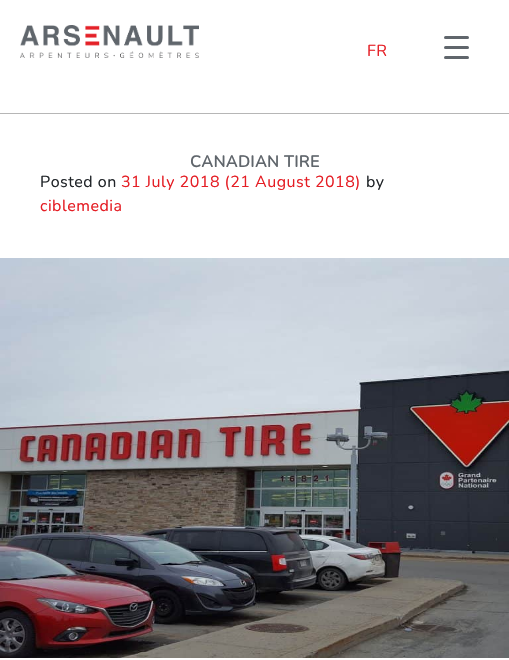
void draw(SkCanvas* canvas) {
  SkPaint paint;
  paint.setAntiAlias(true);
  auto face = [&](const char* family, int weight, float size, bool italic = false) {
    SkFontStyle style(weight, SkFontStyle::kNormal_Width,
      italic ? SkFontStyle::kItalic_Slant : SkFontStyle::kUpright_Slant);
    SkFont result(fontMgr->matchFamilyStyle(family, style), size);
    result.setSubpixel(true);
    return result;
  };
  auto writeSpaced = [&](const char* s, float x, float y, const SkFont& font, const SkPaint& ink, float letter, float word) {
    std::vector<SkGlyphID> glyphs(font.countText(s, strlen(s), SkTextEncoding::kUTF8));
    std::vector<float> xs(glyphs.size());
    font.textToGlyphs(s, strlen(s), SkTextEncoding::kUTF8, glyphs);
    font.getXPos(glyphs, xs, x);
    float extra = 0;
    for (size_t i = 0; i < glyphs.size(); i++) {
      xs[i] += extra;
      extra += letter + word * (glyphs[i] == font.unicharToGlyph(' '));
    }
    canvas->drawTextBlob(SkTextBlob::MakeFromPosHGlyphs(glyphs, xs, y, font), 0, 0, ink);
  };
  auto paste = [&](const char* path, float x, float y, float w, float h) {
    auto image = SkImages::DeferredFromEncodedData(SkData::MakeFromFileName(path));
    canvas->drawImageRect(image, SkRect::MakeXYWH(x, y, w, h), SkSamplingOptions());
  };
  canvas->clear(0xffffffff);
  paste("img/1.png", 20, 25, 179, 33);
  paint.setColor(0xffb6b6b6);
  canvas->drawRect(SkRect::MakeXYWH(0, 113, 509, 1), paint);
  paste("img/2.png", 0, 258, 509, 400);
  paint.setColor(0xff60666c);
  canvas->drawRoundRect(SkRect::MakeXYWH(444, 46, 25, 3), 1.5f, 1.5f, paint);
  canvas->drawRoundRect(SkRect::MakeXYWH(444, 36, 25, 3), 1.5f, 1.5f, paint);
  canvas->drawRoundRect(SkRect::MakeXYWH(444, 56, 25, 3), 1.5f, 1.5f, paint);
  auto f0 = face("Nunito", 200, 16);
  paint.setColor(0xffe51e25);
  writeSpaced("FR", 367, 56, f0, paint, 0.5f, 0);
  auto f1 = face("Nunito", 700, 16);
  paint.setColor(0xff60666c);
  writeSpaced("CANADIAN TIRE", 190, 167, f1, paint, 0.5f, 0);
  paint.setColor(0xff212529);
  writeSpaced("Posted on", 40, 187, f0, paint, 0.5f, 0);
  paint.setColor(0xffe51e25);
  writeSpaced("31 July 2018 (21 August 2018)", 121, 187, f0, paint, 0.5f, 0);
  paint.setColor(0xff212529);
  writeSpaced("by", 366, 187, f0, paint, 0.5f, 0);
  paint.setColor(0xffe51e25);
  writeSpaced("ciblemedia", 40, 211, f0, paint, 0.5f, 0);
}
